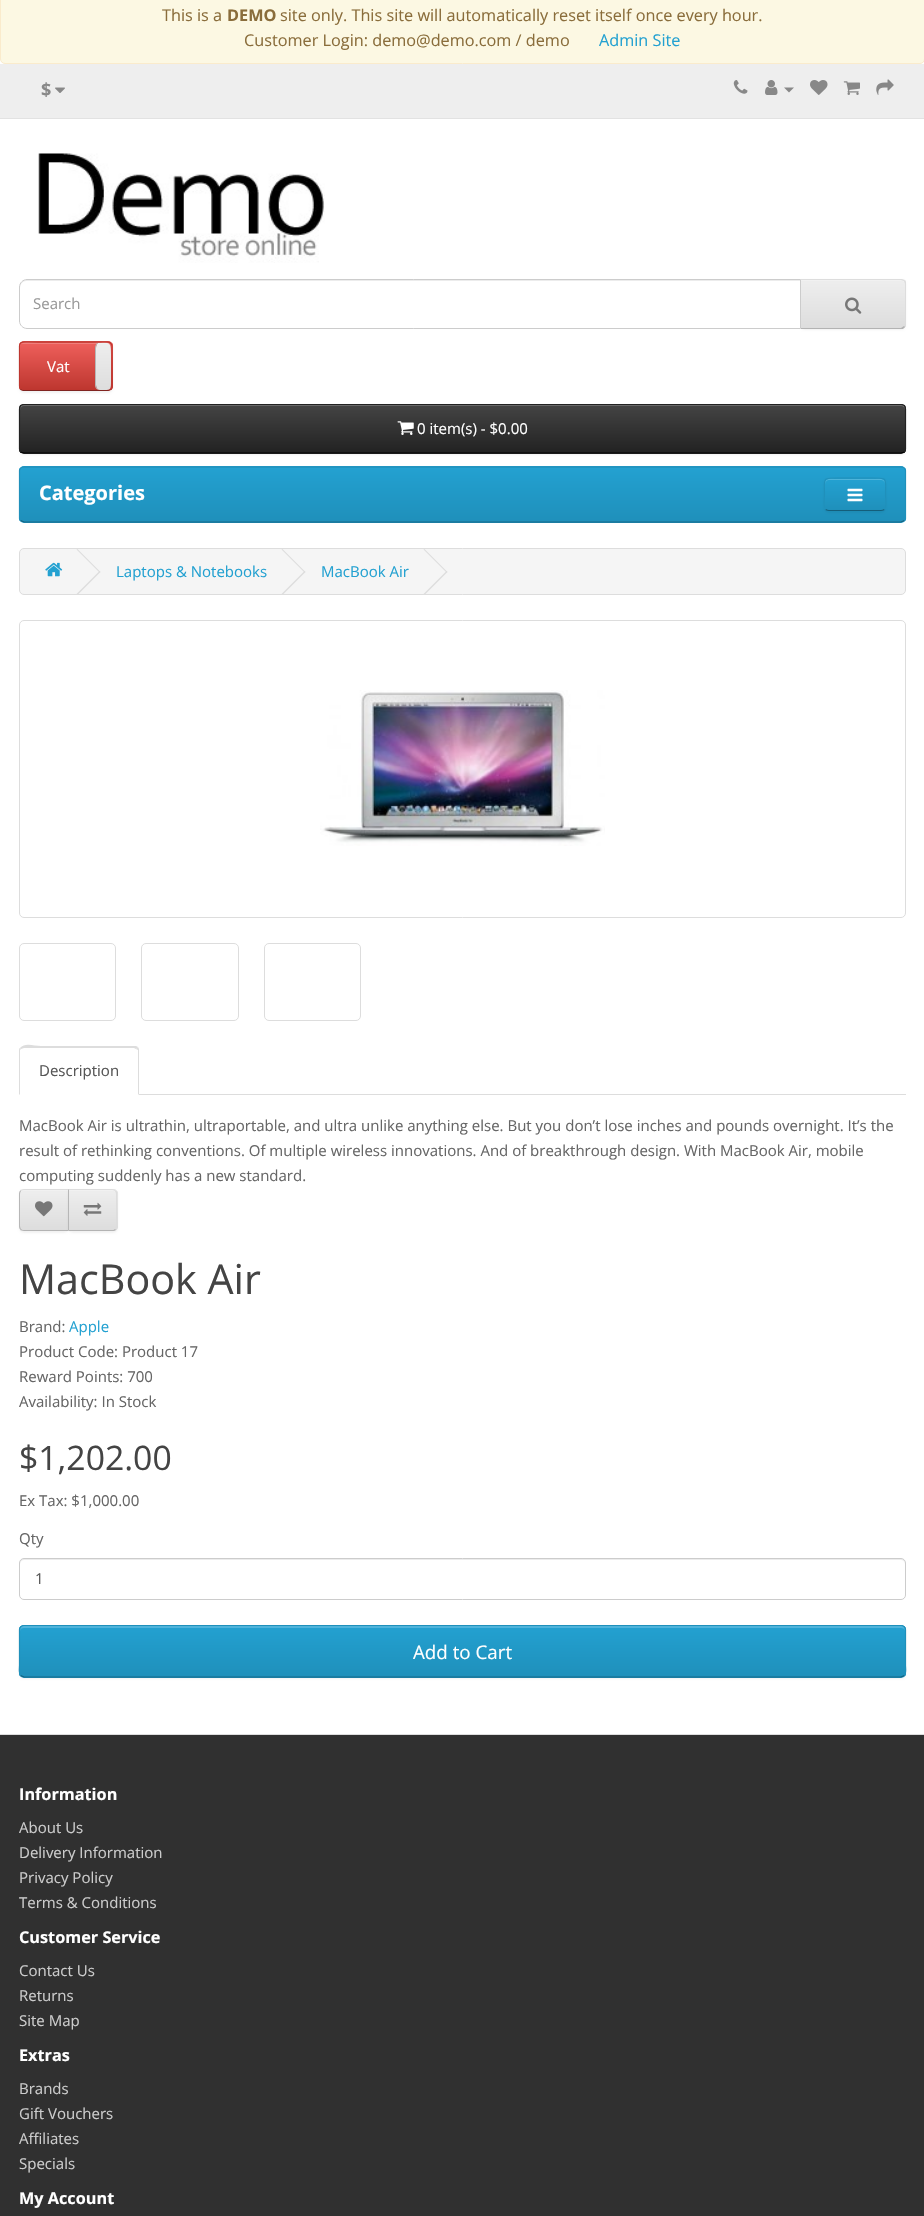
void draw(SkCanvas* canvas) {
  SkPaint paint;
  paint.setAntiAlias(true);
  auto face = [&](const char* family, int weight, float size, bool italic = false) {
    SkFontStyle style(weight, SkFontStyle::kNormal_Width,
      italic ? SkFontStyle::kItalic_Slant : SkFontStyle::kUpright_Slant);
    SkFont result(fontMgr->matchFamilyStyle(family, style), size);
    result.setSubpixel(true);
    return result;
  };
  auto paste = [&](const char* path, float x, float y, float w, float h) {
    auto image = SkImages::DeferredFromEncodedData(SkData::MakeFromFileName(path));
    canvas->drawImageRect(image, SkRect::MakeXYWH(x, y, w, h), SkSamplingOptions());
  };
  auto shape = [&](const char* data, bool evenOdd = false) {
    SkPath result = *SkParsePath::FromSVGString(data);
    if (evenOdd) result.setFillType(SkPathFillType::kEvenOdd);
    return result;
  };
  canvas->clear(0xffffffff);
  paint.setColor(0xfffcf8e3);
  canvas->drawRoundRect(SkRect::MakeXYWH(0.5f, -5.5f, 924, 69), 4.5f, 4.5f, paint);
  paint.setStroke(true);
  paint.setStrokeWidth(1);
  paint.setColor(0xfffaebcc);
  canvas->drawRoundRect(SkRect::MakeXYWH(0.5f, -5.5f, 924, 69), 4.5f, 4.5f, paint);
  paint.setStroke(false);
  paint.setColor(0xffeeeeee);
  canvas->drawRect(SkRect::MakeXYWH(0, 64, 924, 54), paint);
  paint.setColor(0xffe2e2e2);
  canvas->drawRect(SkRect::MakeXYWH(0, 118, 924, 1), paint);
  paste("img/1.png", 55, 87, 10, 6);
  paste("img/2.png", 733, 80, 15, 14);
  paste("img/3.png", 765, 80, 13, 15);
  paint.setColor(0xff888888);
  canvas->drawPath(shape("M784 87.5H794L789 92.5Z"), paint);
  paste("img/4.png", 810, 80, 18, 15);
  paste("img/5.png", 843, 81, 17, 14);
  paste("img/6.png", 876, 79, 18, 16);
  paste("img/7.png", 38, 153, 287, 110);
  paint.setColor(0x0d000000);
  paint.setMaskFilter(SkMaskFilter::MakeBlur(kNormal_SkBlurStyle, 1));
  canvas->drawRoundRect(SkRect::MakeXYWH(800, 280, 106, 50), 5, 5, paint);
  paint.setMaskFilter(nullptr);
  canvas->save();
  canvas->clipPath(shape("M800 279H901C904 279 906 281 906 284V324C906 327 904 329 901 329H800Z"), true);
  {
    const SkColor colors[] = {0xffeeeeee, 0xffdddddd};
    const float stops[] = {0, 1};
    const SkPoint ends[] = {{853, 280}, {853, 328}};
    paint.setShader(SkGradientShader::MakeLinear(ends, colors, stops, 2, SkTileMode::kClamp));
    paint.setAlpha(255);
  }
  canvas->drawRect(SkRect::MakeXYWH(801, 280, 105, 48), paint);
  canvas->restore();
  paint.setShader(nullptr);
  paint.setColor(0xfff1f1f1);
  canvas->drawPath(shape("M801 281H901C903 281 905 283 905 285V284C905 282 903 280 901 280H801Z"), paint);
  paint.setColor(0xffdddddd);
  canvas->drawPath(shape("M905 280L902 279H800L801 280H901L904 281Z"), paint);
  canvas->drawPath(shape("M905 280C906 281 906 282 906 284V324C906 325 906 327 905 327L904 326C906 324 905 320 905 317V284L904 281Z"), paint);
  paint.setColor(0xffb3b3b3);
  canvas->drawPath(shape("M903 329H800L801 328H901L904 326L905 327Z"), paint);
  paint.setColor(0xffffffff);
  canvas->drawPath(shape("M27 279H801V329H27C22.5 329 19 325.5 19 321V287C19 282.5 22.5 279 27 279Z"), paint);
  paint.setColor(0xffececec);
  canvas->drawPath(shape("M26 281H800V280H26C23 280 20 283 20 286V288C20 284 23 281 26 281Z"), paint);
  paint.setStroke(true);
  paint.setColor(0xffcccccc);
  canvas->drawPath(shape("M27 279.5H800.5V328.5H27C23 328.5 19.5 325 19.5 321V287C19.5 283 23 279.5 27 279.5Z"), paint);
  paste("img/8.png", 845, 297, 17, 17);
  paint.setStroke(false);
  paint.setColor(0x0d000000);
  paint.setMaskFilter(SkMaskFilter::MakeBlur(kNormal_SkBlurStyle, 1));
  canvas->drawRoundRect(SkRect::MakeXYWH(19, 343, 94, 50), 5, 5, paint);
  paint.setMaskFilter(nullptr);
  paint.setColor(0xffda4f49);
  canvas->drawRoundRect(SkRect::MakeXYWH(19, 341, 94, 50), 5, 5, paint);
  canvas->save();
  canvas->clipPath(shape("M24 341H108C111 341 113 343 113 346V386C113 389 111 391 108 391H24C21 391 19 389 19 386V346C19 343 21 341 24 341Z"), true);
  {
    const SkColor colors[] = {0xffee5f5b, 0xffbd362f};
    const float stops[] = {0, 1};
    const SkPoint ends[] = {{66, 343}, {66, 390}};
    paint.setShader(SkGradientShader::MakeLinear(ends, colors, stops, 2, SkTileMode::kClamp));
    paint.setAlpha(255);
  }
  canvas->drawRect(SkRect::MakeXYWH(19, 343, 94, 47), paint);
  canvas->restore();
  paint.setShader(nullptr);
  paint.setColor(0x33ffffff);
  canvas->drawPath(shape("M24 344H108C110 344 111 345 111 348C111 339 98 343 93 343H38C33 343 20 339 20 348C20 345 22 344 24 344Z"), paint);
  paint.setStroke(true);
  paint.setStrokeWidth(1.2f);
  paint.setColor(0xff802420);
  canvas->drawPath(shape("M110.5 389.5L108 390.5H23.5L20.5 389.5"), paint);
  paint.setColor(0xffbd362f);
  canvas->drawPath(shape("M20.5 389.5C20 388.5 19.5 387.5 19.5 386V346C19.5 345 20 344 20.5 343C21.5 342.5 22.5 342 24 342H107.5C108.5 342 110 342.5 110.5 343C111.5 344 112 345 112 346V386C112 387.5 111.5 388.5 110.5 389.5"), paint);
  paint.setStroke(false);
  {
    const SkColor colors[] = {0xffee5f5b, 0xffbd362f};
    const float stops[] = {0, 1};
    const SkPoint ends[] = {{66, 343}, {66, 390}};
    paint.setShader(SkGradientShader::MakeLinear(ends, colors, stops, 2, SkTileMode::kClamp));
    paint.setAlpha(255);
  }
  canvas->drawRoundRect(SkRect::MakeXYWH(20, 343, 91, 47), 4, 4, paint);
  canvas->save();
  canvas->clipPath(shape("M24 343H107C109 343 111 345 111 347V386C111 388 109 390 107 390H24C22 390 20 388 20 386V347C20 345 22 343 24 343Z"), true);
  paint.setShader(nullptr);
  paint.setColor(0x33ffffff);
  canvas->drawRect(SkRect::MakeXYWH(20, 343, 91, 1), paint);
  canvas->restore();
  {
    const SkColor colors[] = {0xffeeeeee, 0xffdddddd};
    const float stops[] = {0, 1};
    const SkPoint ends[] = {{111, 343}, {111, 390}};
    paint.setShader(SkGradientShader::MakeLinear(ends, colors, stops, 2, SkTileMode::kClamp));
    paint.setAlpha(255);
  }
  canvas->drawPath(shape("M100 390C111 390 111 391 111 380V354C111 341 110 343 98 343C97 344 96 346 96 348V385C96 388 98 390 100 390Z"), paint);
  paint.setShader(nullptr);
  paint.setColor(0x33ffffff);
  canvas->drawPath(shape("M100 344C98.5 344 97 345 96.5 347C96.5 345.5 97 344 98.5 343C101 343 107.5 342 109.5 344Z"), paint);
  paint.setColor(0xffb7b7b7);
  canvas->drawPath(shape("M95 385V348C95 346 96 344 97 343H98C97 344 96 346 96 348V385C96 388 98 390 100 390C97 390 95 388 95 385Z"), paint);
  paint.setColor(0x0d000000);
  paint.setMaskFilter(SkMaskFilter::MakeBlur(kNormal_SkBlurStyle, 1));
  canvas->drawRoundRect(SkRect::MakeXYWH(19, 405, 887, 50), 5, 5, paint);
  paint.setMaskFilter(nullptr);
  paint.setColor(0xff363636);
  canvas->drawRoundRect(SkRect::MakeXYWH(19, 404, 887, 50), 5, 5, paint);
  canvas->save();
  canvas->clipPath(shape("M24 404H901C904 404 906 406 906 409V449C906 452 904 454 901 454H24C21 454 19 452 19 449V409C19 406 21 404 24 404Z"), true);
  {
    const SkColor colors[] = {0xff444444, 0xff222222};
    const float stops[] = {0, 1};
    const SkPoint ends[] = {{463, 405}, {463, 453}};
    paint.setShader(SkGradientShader::MakeLinear(ends, colors, stops, 2, SkTileMode::kClamp));
    paint.setAlpha(255);
  }
  canvas->drawRect(SkRect::MakeXYWH(19, 405, 887, 48), paint);
  canvas->restore();
  paint.setShader(nullptr);
  paint.setColor(0xff696969);
  canvas->drawPath(shape("M24 406H901C903 406 905 408 905 410C905 407 904 405 901 405H24C21 405 20 407 20 410C20 408 22 406 24 406Z"), paint);
  paint.setStroke(true);
  paint.setColor(0xff000000);
  canvas->drawPath(shape("M904.5 452L901 453H24L20.5 452"), paint);
  paint.setColor(0xff222222);
  canvas->drawPath(shape("M20.5 452C20 451 19.5 450 19.5 449V409C19.5 407.5 20 406.5 20.5 405.5C21.5 405 22.5 404.5 24 404.5H901C902.5 404.5 903.5 405 904.5 405.5C905 406.5 905.5 407.5 905.5 409V449C905.5 450 905 451 904.5 452"), paint);
  paste("img/9.png", 397, 421, 17, 14);
  paint.setStroke(false);
  paint.setColor(0xff229ac8);
  canvas->drawRoundRect(SkRect::MakeXYWH(19, 466, 887, 57), 5, 5, paint);
  canvas->save();
  canvas->clipPath(shape("M24 466H901C904 466 906 468 906 471V518C906 521 904 523 901 523H24C21 523 19 521 19 518V471C19 468 21 466 24 466Z"), true);
  {
    const SkColor colors[] = {0xff23a1d1, 0xff1f90bb};
    const float stops[] = {0, 1};
    const SkPoint ends[] = {{463, 467}, {463, 521}};
    paint.setShader(SkGradientShader::MakeLinear(ends, colors, stops, 2, SkTileMode::kClamp));
    paint.setAlpha(255);
  }
  canvas->drawRect(SkRect::MakeXYWH(19, 468, 887, 53), paint);
  canvas->restore();
  paint.setStroke(true);
  paint.setShader(nullptr);
  paint.setColor(0xff145e7a);
  canvas->drawPath(shape("M904.5 520.5L901 522H24L20.5 520.5"), paint);
  paint.setColor(0xff1f90bb);
  canvas->drawPath(shape("M20.5 520.5L19.5 518.5V470.5C20 468.5 21.5 467 24 467H901C903.5 467 905 468.5 905.5 470.5V518.5L904.5 520.5"), paint);
  paint.setStroke(false);
  paint.setColor(0x0d000000);
  paint.setMaskFilter(SkMaskFilter::MakeBlur(kNormal_SkBlurStyle, 1));
  canvas->drawRoundRect(SkRect::MakeXYWH(824, 479, 62, 34), 5, 5, paint);
  paint.setMaskFilter(nullptr);
  paint.setColor(0xff229ac8);
  canvas->drawRoundRect(SkRect::MakeXYWH(824, 478, 62, 33), 5, 5, paint);
  canvas->save();
  canvas->clipPath(shape("M829 478H881C884 478 886 480 886 483V506C886 509 884 511 881 511H829C826 511 824 509 824 506V483C824 480 826 478 829 478Z"), true);
  {
    const SkColor colors[] = {0xff23a1d1, 0xff1f90bb};
    const float stops[] = {0, 1};
    const SkPoint ends[] = {{855, 479}, {855, 510}};
    paint.setShader(SkGradientShader::MakeLinear(ends, colors, stops, 2, SkTileMode::kClamp));
    paint.setAlpha(255);
  }
  canvas->drawRect(SkRect::MakeXYWH(824, 479, 62, 31), paint);
  canvas->restore();
  paint.setShader(nullptr);
  paint.setColor(0xff4fb4da);
  canvas->drawPath(shape("M829 480H881C883 480 885 482 885 484C885 477 877 479 872 479H838C833 479 825 477 825 484C825 482 827 480 829 480Z"), paint);
  paint.setStroke(true);
  paint.setColor(0xff145e7a);
  canvas->drawPath(shape("M884.5 509.5C883.5 510 882.5 510.5 881 510.5H829C827.5 510.5 826.5 510 825.5 509.5"), paint);
  paint.setColor(0xff1f90bb);
  canvas->drawPath(shape("M825.5 509.5C823 506.5 824.5 497.5 824.5 494.5C824.5 478 821.5 478 837.5 478H872.5C888.5 478 885.5 478 885.5 494.5C885.5 497.5 887 506.5 884.5 509.5"), paint);
  paste("img/10.png", 847, 488, 16, 14);
  paint.setStroke(false);
  paint.setColor(0xfff5f5f5);
  canvas->drawRoundRect(SkRect::MakeXYWH(19.5f, 548.5f, 886, 46), 4.5f, 4.5f, paint);
  paint.setStroke(true);
  paint.setStrokeWidth(1);
  paint.setColor(0xffdddddd);
  canvas->drawRoundRect(SkRect::MakeXYWH(19.5f, 548.5f, 886, 46), 4.5f, 4.5f, paint);
  paste("img/11.png", 45, 562, 18, 15);
  paint.setStroke(false);
  canvas->drawPath(shape("M76.5 549.5L77.5 549L100.5 572L99.5 572.5Z"), paint);
  canvas->drawPath(shape("M76.5 594L99.5 571L100.5 572L77.5 595Z"), paint);
  canvas->drawPath(shape("M281.5 549.5L282.5 549L305.5 572L304.5 572.5Z"), paint);
  canvas->drawPath(shape("M281.5 594L304.5 571L305.5 572L282.5 595Z"), paint);
  canvas->drawPath(shape("M423.5 549.5L424.5 549L447.5 572L446.5 572.5Z"), paint);
  canvas->drawPath(shape("M423.5 594L446.5 571L447.5 572L424.5 595Z"), paint);
  paint.setStroke(true);
  canvas->drawRoundRect(SkRect::MakeXYWH(19.5f, 620.5f, 886, 297), 4.5f, 4.5f, paint);
  paste("img/12.png", 320, 690, 285, 156);
  canvas->drawRoundRect(SkRect::MakeXYWH(19.5f, 943.5f, 96, 77), 4.5f, 4.5f, paint);
  canvas->drawRoundRect(SkRect::MakeXYWH(141.5f, 943.5f, 97, 77), 4.5f, 4.5f, paint);
  canvas->drawRoundRect(SkRect::MakeXYWH(264.5f, 943.5f, 96, 77), 4.5f, 4.5f, paint);
  paint.setStroke(false);
  canvas->drawRect(SkRect::MakeXYWH(139, 1094, 767, 1), paint);
  canvas->drawPath(shape("M24 1048L21 1049L20 1048C25 1042 34 1046 41 1046H136L138 1047L136 1049L134 1048Z"), paint);
  canvas->drawPath(shape("M139 1049V1095L138 1094V1050L136 1049L138 1047Z"), paint);
  canvas->drawPath(shape("M19 1095V1051C19 1050 19 1048 20 1048L21 1049L20 1050V1094Z"), paint);
  paint.setColor(0x0d000000);
  paint.setMaskFilter(SkMaskFilter::MakeBlur(kNormal_SkBlurStyle, 1));
  canvas->drawRoundRect(SkRect::MakeXYWH(19, 1190, 50, 43), 5, 5, paint);
  paint.setMaskFilter(nullptr);
  canvas->save();
  canvas->clipPath(shape("M24 1189H69V1231H24C21 1231 19 1229 19 1226V1194C19 1191 21 1189 24 1189Z"), true);
  {
    const SkColor colors[] = {0xffeeeeee, 0xffdddddd};
    const float stops[] = {0, 1};
    const SkPoint ends[] = {{44, 1190}, {44, 1230}};
    paint.setShader(SkGradientShader::MakeLinear(ends, colors, stops, 2, SkTileMode::kClamp));
    paint.setAlpha(255);
  }
  canvas->drawRect(SkRect::MakeXYWH(19, 1190, 49, 40), paint);
  canvas->restore();
  paint.setShader(nullptr);
  paint.setColor(0xfff1f1f1);
  canvas->drawPath(shape("M24 1191H68V1190H24C22 1190 20 1192 20 1194V1195C20 1193 22 1191 24 1191Z"), paint);
  paint.setColor(0xffdddddd);
  canvas->drawPath(shape("M24 1189C22 1189 21 1190 20 1190L21 1191C22 1190 23 1190 24 1190H68V1189Z"), paint);
  paint.setColor(0xffb3b3b3);
  canvas->drawPath(shape("M68 1231H24C22 1231 21 1230 20 1230L21 1229C22 1230 23 1230 24 1230H68Z"), paint);
  paint.setColor(0xffb7b7b7);
  canvas->drawPath(shape("M20.5 1190.5C19.5 1191 19 1192.5 19 1194V1226C19 1227.5 19.5 1229 20.5 1229.5L21 1229C20.5 1228 20 1227 20 1226V1194C20 1193 20.5 1192 21 1191Z"), paint);
  paste("img/13.png", 35, 1201, 18, 16);
  paint.setColor(0x0d000000);
  paint.setMaskFilter(SkMaskFilter::MakeBlur(kNormal_SkBlurStyle, 1));
  canvas->drawRoundRect(SkRect::MakeXYWH(68, 1190, 50, 43), 5, 5, paint);
  paint.setMaskFilter(nullptr);
  paint.setColor(0xffe7e7e7);
  canvas->drawPath(shape("M68 1189H113C116 1189 118 1191 118 1194V1226C118 1229 116 1231 113 1231H68Z"), paint);
  canvas->save();
  canvas->clipPath(shape("M68 1189H113C116 1189 118 1191 118 1194V1226C118 1229 116 1231 113 1231H68Z"), true);
  {
    const SkColor colors[] = {0xffeeeeee, 0xffdddddd};
    const float stops[] = {0, 1};
    const SkPoint ends[] = {{93, 1190}, {93, 1230}};
    paint.setShader(SkGradientShader::MakeLinear(ends, colors, stops, 2, SkTileMode::kClamp));
    paint.setAlpha(255);
  }
  canvas->drawRect(SkRect::MakeXYWH(69, 1190, 49, 40), paint);
  canvas->restore();
  paint.setShader(nullptr);
  paint.setColor(0xfff1f1f1);
  canvas->drawPath(shape("M69 1191H112C115 1191 116 1193 116 1195V1194C116 1192 114 1190 112 1190H69Z"), paint);
  paint.setColor(0xffdddddd);
  canvas->drawPath(shape("M68 1189L69 1190H112C113 1190 114 1190 115 1191L116 1190L112 1189Z"), paint);
  canvas->drawPath(shape("M116 1190.5L117.5 1192V1228L116 1229.5L115 1229C115.5 1228 116 1227 116 1226V1194C116 1193 115.5 1192 115 1191Z"), paint);
  paint.setColor(0xffb3b3b3);
  canvas->drawPath(shape("M116 1230C115 1231 113 1231 112 1231H68L69 1230H112C113 1230 114 1230 115 1229Z"), paint);
  paint.setColor(0xffb7b7b7);
  canvas->drawPath(shape("M68 1189V1231L69 1230V1190Z"), paint);
  paste("img/14.png", 83, 1202, 19, 14);
  paint.setColor(0xffececec);
  canvas->drawPath(shape("M24 1560H901C903 1560 905 1562 905 1564C905 1561 904 1559 901 1559H24C21 1559 20 1561 20 1564C20 1562 22 1560 24 1560Z"), paint);
  paint.setStroke(true);
  paint.setColor(0xffcccccc);
  canvas->drawRoundRect(SkRect::MakeXYWH(19.5f, 1558.5f, 886, 41), 4.5f, 4.5f, paint);
  paint.setStroke(false);
  paint.setColor(0x0d000000);
  paint.setMaskFilter(SkMaskFilter::MakeBlur(kNormal_SkBlurStyle, 1));
  canvas->drawRoundRect(SkRect::MakeXYWH(19, 1626, 887, 53), 5, 5, paint);
  paint.setMaskFilter(nullptr);
  paint.setColor(0xff229ac8);
  canvas->drawRoundRect(SkRect::MakeXYWH(19, 1625, 887, 53), 5, 5, paint);
  canvas->save();
  canvas->clipPath(shape("M24 1625H901C904 1625 906 1627 906 1630V1673C906 1676 904 1678 901 1678H24C21 1678 19 1676 19 1673V1630C19 1627 21 1625 24 1625Z"), true);
  {
    const SkColor colors[] = {0xff23a1d1, 0xff1f90bb};
    const float stops[] = {0, 1};
    const SkPoint ends[] = {{463, 1626}, {463, 1676}};
    paint.setShader(SkGradientShader::MakeLinear(ends, colors, stops, 2, SkTileMode::kClamp));
    paint.setAlpha(255);
  }
  canvas->drawRect(SkRect::MakeXYWH(19, 1626, 887, 50), paint);
  canvas->restore();
  paint.setShader(nullptr);
  paint.setColor(0xff4fb3da);
  canvas->drawPath(shape("M24 1628H901C903 1628 905 1629 905 1631C905 1628 904 1626 901 1626H24C21 1626 20 1628 20 1631C20 1629 22 1628 24 1628Z"), paint);
  paint.setStroke(true);
  paint.setStrokeWidth(1.2f);
  paint.setColor(0xff145e7a);
  canvas->drawPath(shape("M904.5 1675.5L901 1677H24L20.5 1675.5"), paint);
  paint.setColor(0xff1f90bb);
  canvas->drawPath(shape("M20.5 1675.5C18.5 1673 19.5 1667.5 19.5 1665.5V1629.5C19.5 1627.5 21.5 1625.5 24 1625.5H901C903.5 1625.5 905.5 1627.5 905.5 1629.5V1665.5C905.5 1667.5 906.5 1673 904.5 1675.5"), paint);
  paint.setStroke(false);
  paint.setColor(0xff303030);
  canvas->drawRect(SkRect::MakeXYWH(0, 1735, 924, 481), paint);
  paint.setColor(0xffdddddd);
  canvas->drawRect(SkRect::MakeXYWH(0, 1734, 924, 1), paint);
  auto f0 = face("Open Sans", 400, 16.25f);
  paint.setColor(0xff8a6d3b);
  canvas->drawString("This is a", 162, 21, f0, paint);
  auto f1 = face("Open Sans", 700, 16.25f);
  canvas->drawString("DEMO", 227, 21, f1, paint);
  canvas->drawString("site only. This site will automatically reset itself once every hour.", 280, 21, f0, paint);
  canvas->drawString("Customer Login: demo@demo.com / demo", 244, 46, f0, paint);
  paint.setColor(0xff23a1d1);
  canvas->drawString("Admin Site", 599, 46, f0, paint);
  auto f2 = face("Open Sans", 700, 18);
  paint.setColor(0xff888888);
  canvas->drawString("$", 41, 96, f2, paint);
  auto f3 = face("Open Sans", 400, 15);
  paint.setColor(0xff999999);
  canvas->drawString("Search", 33, 309, f3, paint);
  paint.setColor(0xffffffff);
  canvas->drawString("Vat", 47, 372, f3, paint);
  canvas->drawString("0 item(s) - $0.00", 417, 434, f3, paint);
  auto f4 = face("Open Sans", 700, 20);
  canvas->drawString("Categories", 39, 500, f4, paint);
  paint.setColor(0xff23a1d1);
  canvas->drawString("Laptops & Notebooks", 116, 577, f3, paint);
  canvas->drawString("MacBook Air", 321, 577, f3, paint);
  paint.setColor(0xff555555);
  canvas->drawString("Description", 39, 1076, f3, paint);
  paint.setColor(0xff666666);
  {
    const struct { const char* s; float x, y; } items[] = {
      {"MacBook Air is ultrathin, ultraportable, and ultra unlike anything else. But you don’t lose inches and pounds overnight. It’s the", 19, 1131},
      {"result of rethinking conventions. Of multiple wireless innovations. And of breakthrough design. With MacBook Air, mobile", 19, 1156},
      {"computing suddenly has a new standard.", 19, 1181},
    };
    for (auto [s, x, y] : items) {
      canvas->drawString(s, x, y, f3, paint);
    }
  }
  auto f5 = face("Open Sans", 400, 41.25f);
  paint.setColor(0xff444444);
  canvas->drawString("MacBook Air", 19, 1294, f5, paint);
  paint.setColor(0xff666666);
  canvas->drawString("Brand:", 19, 1332, f3, paint);
  paint.setColor(0xff23a1d1);
  canvas->drawString("Apple", 69, 1332, f3, paint);
  paint.setColor(0xff666666);
  {
    const struct { const char* s; float x, y; } items[] = {
      {"Product Code: Product 17", 19, 1357},
      {"Reward Points: 700", 19, 1382},
      {"Availability: In Stock", 19, 1407},
    };
    for (auto [s, x, y] : items) {
      canvas->drawString(s, x, y, f3, paint);
    }
  }
  auto f6 = face("Open Sans", 400, 33.75f);
  paint.setColor(0xff444444);
  canvas->drawString("$1,202.00", 19, 1470, f6, paint);
  paint.setColor(0xff666666);
  canvas->drawString("Ex Tax: $1,000.00", 19, 1506, f3, paint);
  canvas->drawString("Qty", 19, 1544, f3, paint);
  paint.setColor(0xff555555);
  canvas->drawString("1", 35, 1584, f3, paint);
  auto f7 = face("Open Sans", 400, 18.75f);
  paint.setColor(0xffffffff);
  canvas->drawString("Add to Cart", 413, 1659, f7, paint);
  canvas->drawString("Information", 19, 1800, f1, paint);
  paint.setColor(0xffcccccc);
  {
    const struct { const char* s; float x, y; } items[] = {
      {"About Us", 19, 1833},
      {"Delivery Information", 19, 1858},
      {"Privacy Policy", 19, 1883},
      {"Terms & Conditions", 19, 1908},
    };
    for (auto [s, x, y] : items) {
      canvas->drawString(s, x, y, f3, paint);
    }
  }
  paint.setColor(0xffffffff);
  canvas->drawString("Customer Service", 19, 1943, f1, paint);
  paint.setColor(0xffcccccc);
  {
    const struct { const char* s; float x, y; } items[] = {
      {"Contact Us", 19, 1976},
      {"Returns", 19, 2001},
      {"Site Map", 19, 2026},
    };
    for (auto [s, x, y] : items) {
      canvas->drawString(s, x, y, f3, paint);
    }
  }
  paint.setColor(0xffffffff);
  canvas->drawString("Extras", 19, 2061, f1, paint);
  paint.setColor(0xffcccccc);
  {
    const struct { const char* s; float x, y; } items[] = {
      {"Brands", 19, 2094},
      {"Gift Vouchers", 19, 2119},
      {"Affiliates", 19, 2144},
      {"Specials", 19, 2169},
    };
    for (auto [s, x, y] : items) {
      canvas->drawString(s, x, y, f3, paint);
    }
  }
  paint.setColor(0xffffffff);
  canvas->drawString("My Account", 19, 2204, f1, paint);
}
